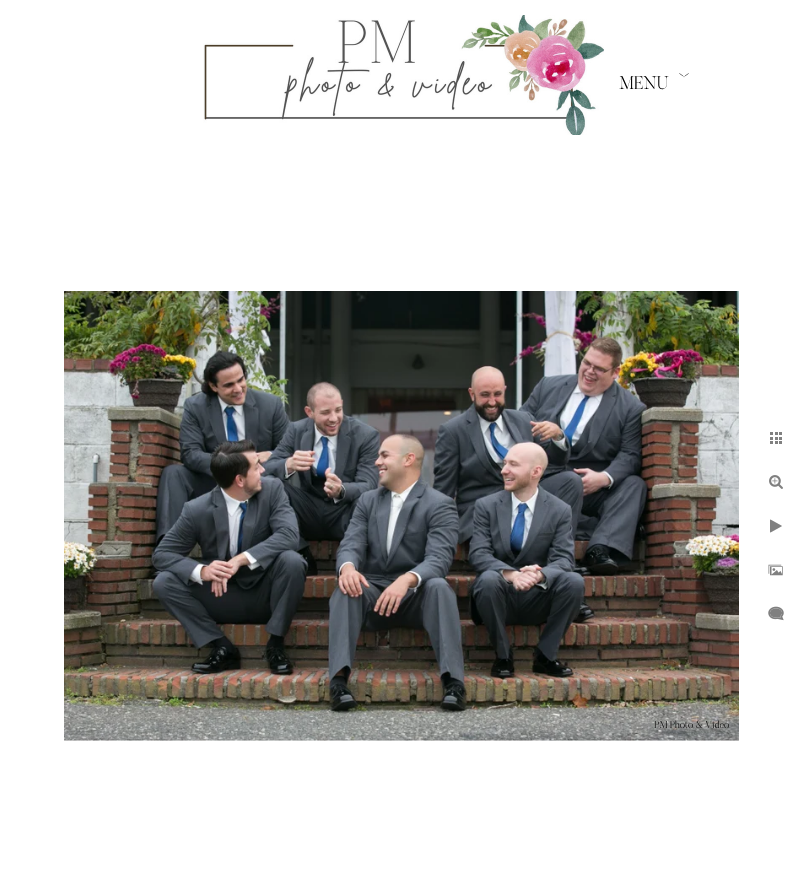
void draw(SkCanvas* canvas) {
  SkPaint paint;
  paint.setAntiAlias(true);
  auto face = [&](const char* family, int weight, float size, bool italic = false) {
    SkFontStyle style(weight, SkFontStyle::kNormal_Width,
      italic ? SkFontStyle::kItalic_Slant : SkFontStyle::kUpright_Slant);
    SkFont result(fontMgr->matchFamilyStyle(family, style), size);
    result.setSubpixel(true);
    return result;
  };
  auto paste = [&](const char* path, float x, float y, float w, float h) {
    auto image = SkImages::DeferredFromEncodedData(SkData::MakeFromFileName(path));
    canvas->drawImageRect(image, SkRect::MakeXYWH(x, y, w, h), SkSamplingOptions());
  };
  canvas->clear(0xffffffff);
  paste("img/1.png", 203, 15, 401, 120);
  paste("img/2.png", 679, 73, 10, 5);
  paste("img/3.png", 770, 432, 12, 12);
  paste("img/4.png", 769, 475, 14, 14);
  paste("img/5.png", 770, 519, 12, 14);
  paste("img/6.png", 768, 564, 15, 12);
  paste("img/7.png", 768, 606, 16, 15);
  paste("img/8.png", 64, 291, 675, 450);
  auto f0 = face("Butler", 200, 18);
  paint.setColor(0xff000000);
  canvas->drawString("MENU", 619, 89, f0, paint);
  auto f1 = face("Butler", 200, 10);
  canvas->drawString("PM Photo & Video", 654, 728, f1, paint);
}
